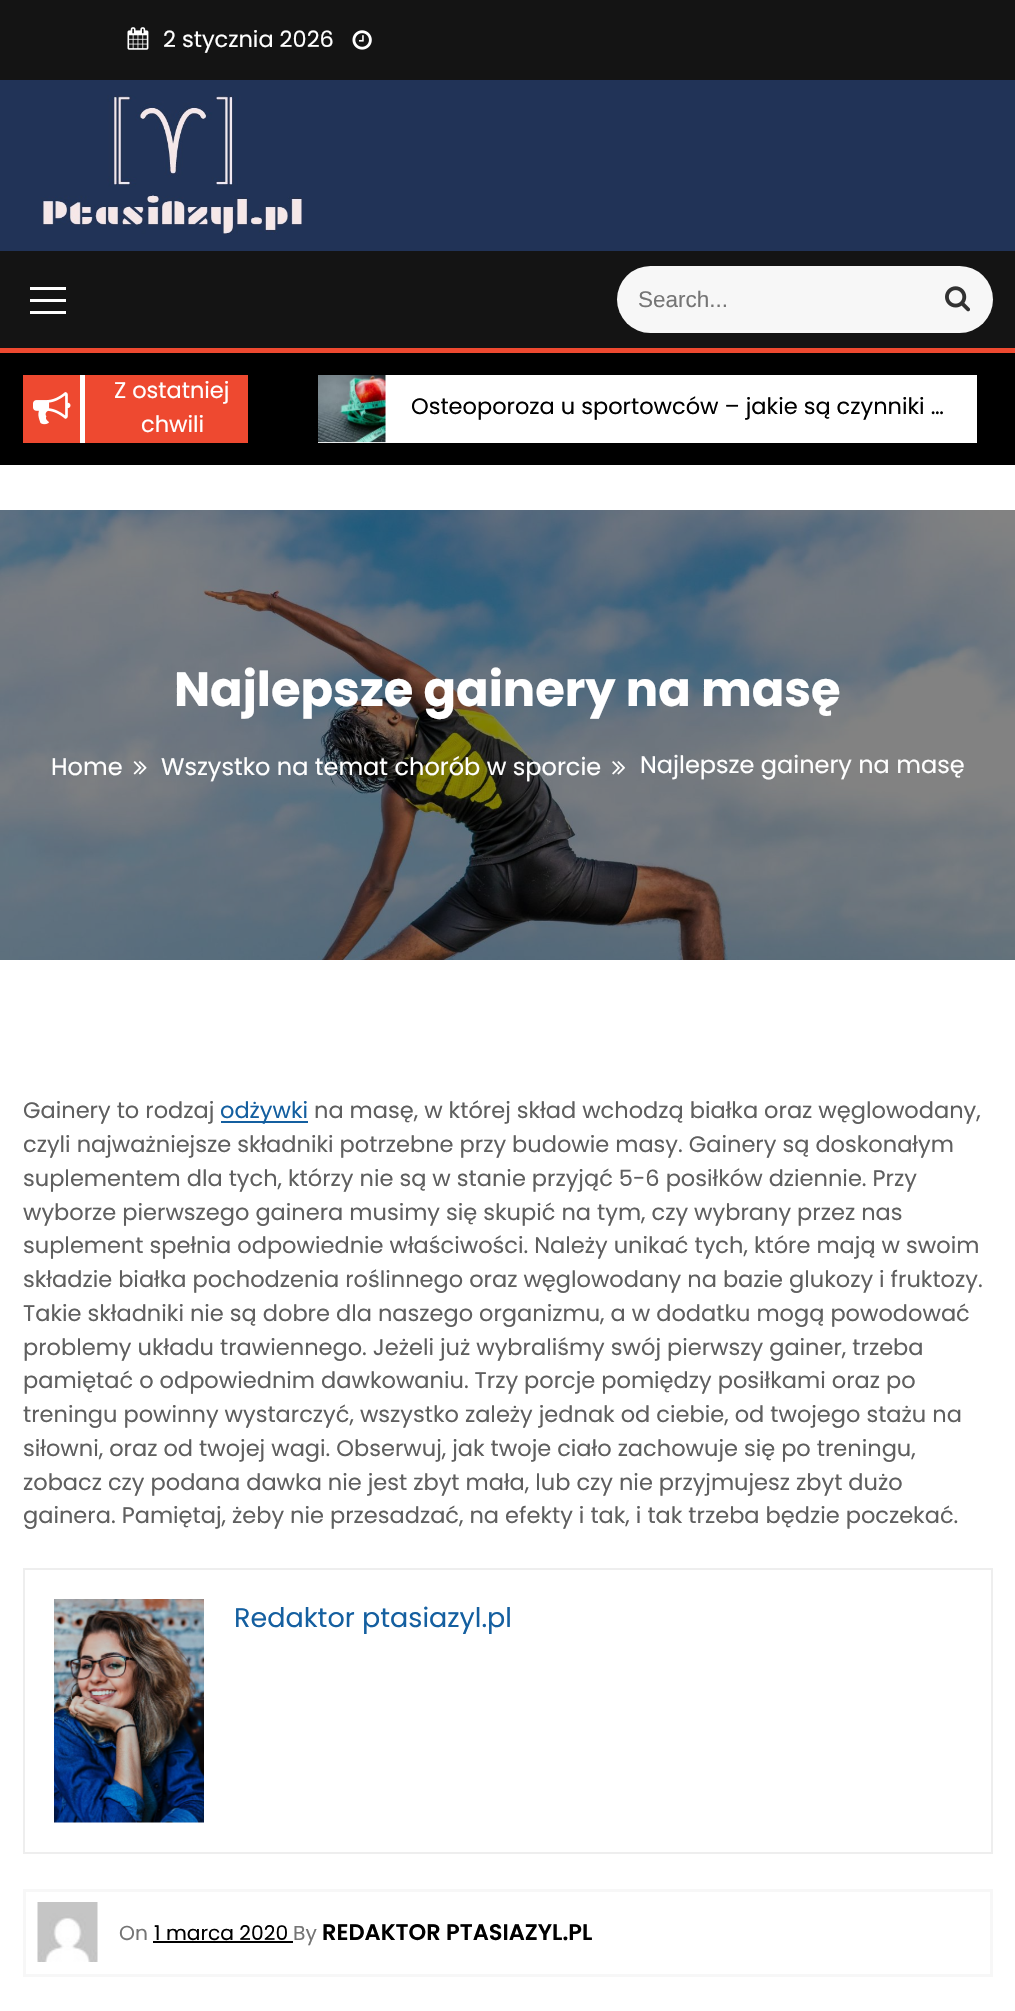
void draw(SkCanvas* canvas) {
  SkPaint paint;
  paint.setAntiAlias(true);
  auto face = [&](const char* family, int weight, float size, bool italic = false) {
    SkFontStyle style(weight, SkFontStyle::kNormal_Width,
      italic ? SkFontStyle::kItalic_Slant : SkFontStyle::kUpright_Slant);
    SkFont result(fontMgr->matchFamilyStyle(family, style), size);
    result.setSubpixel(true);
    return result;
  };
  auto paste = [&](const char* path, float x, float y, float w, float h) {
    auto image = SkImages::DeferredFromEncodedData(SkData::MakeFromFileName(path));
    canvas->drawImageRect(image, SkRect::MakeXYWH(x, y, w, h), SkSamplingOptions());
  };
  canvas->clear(0xffffffff);
  paint.setColor(0xff141414);
  canvas->drawRect(SkRect::MakeXYWH(0, 0, 1015, 80), paint);
  paste("img/1.png", 127, 27, 22, 23);
  paste("img/2.png", 352, 30, 20, 20);
  paint.setColor(0xff213357);
  canvas->drawRect(SkRect::MakeXYWH(0, 80, 1015, 171), paint);
  paste("img/3.png", 41, 95, 263, 139);
  {
    const struct { float x, y, w, h; SkColor color; } items[] = {
      {0, 251, 1015, 97, 0xff141414},
      {0, 348, 1015, 5, 0xffee4930},
      {30, 287, 36, 3, 0xffffffff},
      {30, 299, 36, 3, 0xffffffff},
      {30, 311, 36, 3, 0xffffffff},
    };
    for (auto [x, y, w, h, color] : items) {
      paint.setColor(color);
      canvas->drawRect(SkRect::MakeXYWH(x, y, w, h), paint);
    }
  }
  paint.setColor(0xfff7f7f7);
  canvas->drawRoundRect(SkRect::MakeXYWH(617, 266, 376, 67), 33.5f, 33.5f, paint);
  paste("img/4.png", 945, 286, 25, 26);
  {
    const struct { float x, y, w, h; SkColor color; } items[] = {
      {0, 353, 1015, 112, 0xff000000},
      {23, 375, 225, 68, 0xffee4930},
      {80, 375, 5, 68, 0xffffffff},
    };
    for (auto [x, y, w, h, color] : items) {
      paint.setColor(color);
      canvas->drawRect(SkRect::MakeXYWH(x, y, w, h), paint);
    }
  }
  paste("img/5.png", 33, 392, 38, 33);
  canvas->drawRect(SkRect::MakeXYWH(318, 375, 659, 68), paint);
  paste("img/6.png", 318, 375, 68, 68);
  paste("img/7.png", 0, 510, 1015, 450);
  paste("img/8.png", 133, 761, 14, 14);
  paste("img/9.png", 612, 761, 13, 14);
  paint.setColor(0xff145fa0);
  canvas->drawRect(SkRect::MakeXYWH(221, 1121, 87, 2), paint);
  paint.setStroke(true);
  paint.setStrokeWidth(2);
  paint.setColor(0xffeeeeee);
  canvas->drawRect(SkRect::MakeXYWH(24, 1569, 968, 284), paint);
  paste("img/10.png", 54, 1599, 150, 224);
  paint.setStrokeWidth(3);
  paint.setColor(0xfff7f7f7);
  canvas->drawRect(SkRect::MakeXYWH(24.5f, 1890.5f, 967, 85), paint);
  paste("img/11.png", 37, 1902, 61, 60);
  paint.setStroke(false);
  paint.setColor(0xff000000);
  canvas->drawRect(SkRect::MakeXYWH(153, 1941, 140, 2), paint);
  auto f0 = face("Poppins", 400, 22.5f);
  paint.setColor(0xffffffff);
  canvas->drawString("2 stycznia 2026", 163, 47, f0, paint);
  auto f1 = face("Liberation Sans", 400, 22.5f);
  paint.setColor(0xff757575);
  canvas->drawString("Search...", 638, 307, f1, paint);
  paint.setColor(0xffffffff);
  canvas->drawString("Z ostatniej", 114, 398, f0, paint);
  canvas->drawString("chwili", 141, 432, f0, paint);
  paint.setColor(0xff000000);
  canvas->drawString("Osteoporoza u sportowców – jakie są czynniki …", 411, 414, f0, paint);
  auto f2 = face("Poppins", 700, 48);
  paint.setColor(0xffffffff);
  canvas->drawString("Najlepsze gainery na masę", 174, 706, f2, paint);
  auto f3 = face("Poppins", 400, 24);
  {
    const struct { const char* s; float x, y; } items[] = {
      {"Home", 51, 775},
      {"Wszystko na temat chorób w sporcie", 161, 775},
      {"Najlepsze gainery na masę", 640, 773},
    };
    for (auto [s, x, y] : items) {
      canvas->drawString(s, x, y, f3, paint);
    }
  }
  paint.setColor(0xff5f5f5f);
  canvas->drawString("Gainery to rodzaj", 23, 1118, f0, paint);
  paint.setColor(0xff145fa0);
  canvas->drawString("odżywki", 220, 1118, f0, paint);
  paint.setColor(0xff5f5f5f);
  {
    const struct { const char* s; float x, y; } items[] = {
      {"na masę, w której skład wchodzą białka oraz węglowodany,", 314, 1118},
      {"czyli najważniejsze składniki potrzebne przy budowie masy. Gainery są doskonałym", 23, 1152},
      {"suplementem dla tych, którzy nie są w stanie przyjąć 5-6 posiłków dziennie. Przy", 23, 1186},
      {"wyborze pierwszego gainera musimy się skupić na tym, czy wybrany przez nas", 23, 1220},
      {"suplement spełnia odpowiednie właściwości. Należy unikać tych, które mają w swoim", 23, 1253},
      {"składzie białka pochodzenia roślinnego oraz węglowodany na bazie glukozy i fruktozy.", 23, 1287},
      {"Takie składniki nie są dobre dla naszego organizmu, a w dodatku mogą powodować", 23, 1321},
      {"problemy układu trawiennego. Jeżeli już wybraliśmy swój pierwszy gainer, trzeba", 23, 1355},
      {"pamiętać o odpowiednim dawkowaniu. Trzy porcje pomiędzy posiłkami oraz po", 23, 1388},
      {"treningu powinny wystarczyć, wszystko zależy jednak od ciebie, od twojego stażu na", 23, 1422},
      {"siłowni, oraz od twojej wagi. Obserwuj, jak twoje ciało zachowuje się po treningu,", 23, 1456},
      {"zobacz czy podana dawka nie jest zbyt mała, lub czy nie przyjmujesz zbyt dużo", 23, 1490},
      {"gainera. Pamiętaj, żeby nie przesadzać, na efekty i tak, i tak trzeba będzie poczekać.", 23, 1523},
    };
    for (auto [s, x, y] : items) {
      canvas->drawString(s, x, y, f0, paint);
    }
  }
  auto f4 = face("Poppins", 400, 27);
  paint.setColor(0xff145fa0);
  canvas->drawString("Redaktor ptasiazyl.pl", 234, 1627, f4, paint);
  auto f5 = face("Poppins", 400, 20.25f);
  paint.setColor(0xff757575);
  canvas->drawString("On", 119, 1940, f5, paint);
  paint.setColor(0xff000000);
  canvas->drawString("1 marca 2020", 154, 1940, f5, paint);
  paint.setColor(0xff757575);
  canvas->drawString("By", 293, 1940, f5, paint);
  auto f6 = face("Poppins", 600, 22.5f);
  paint.setColor(0xff000000);
  canvas->drawString("REDAKTOR PTASIAZYL.PL", 322, 1940, f6, paint);
}
